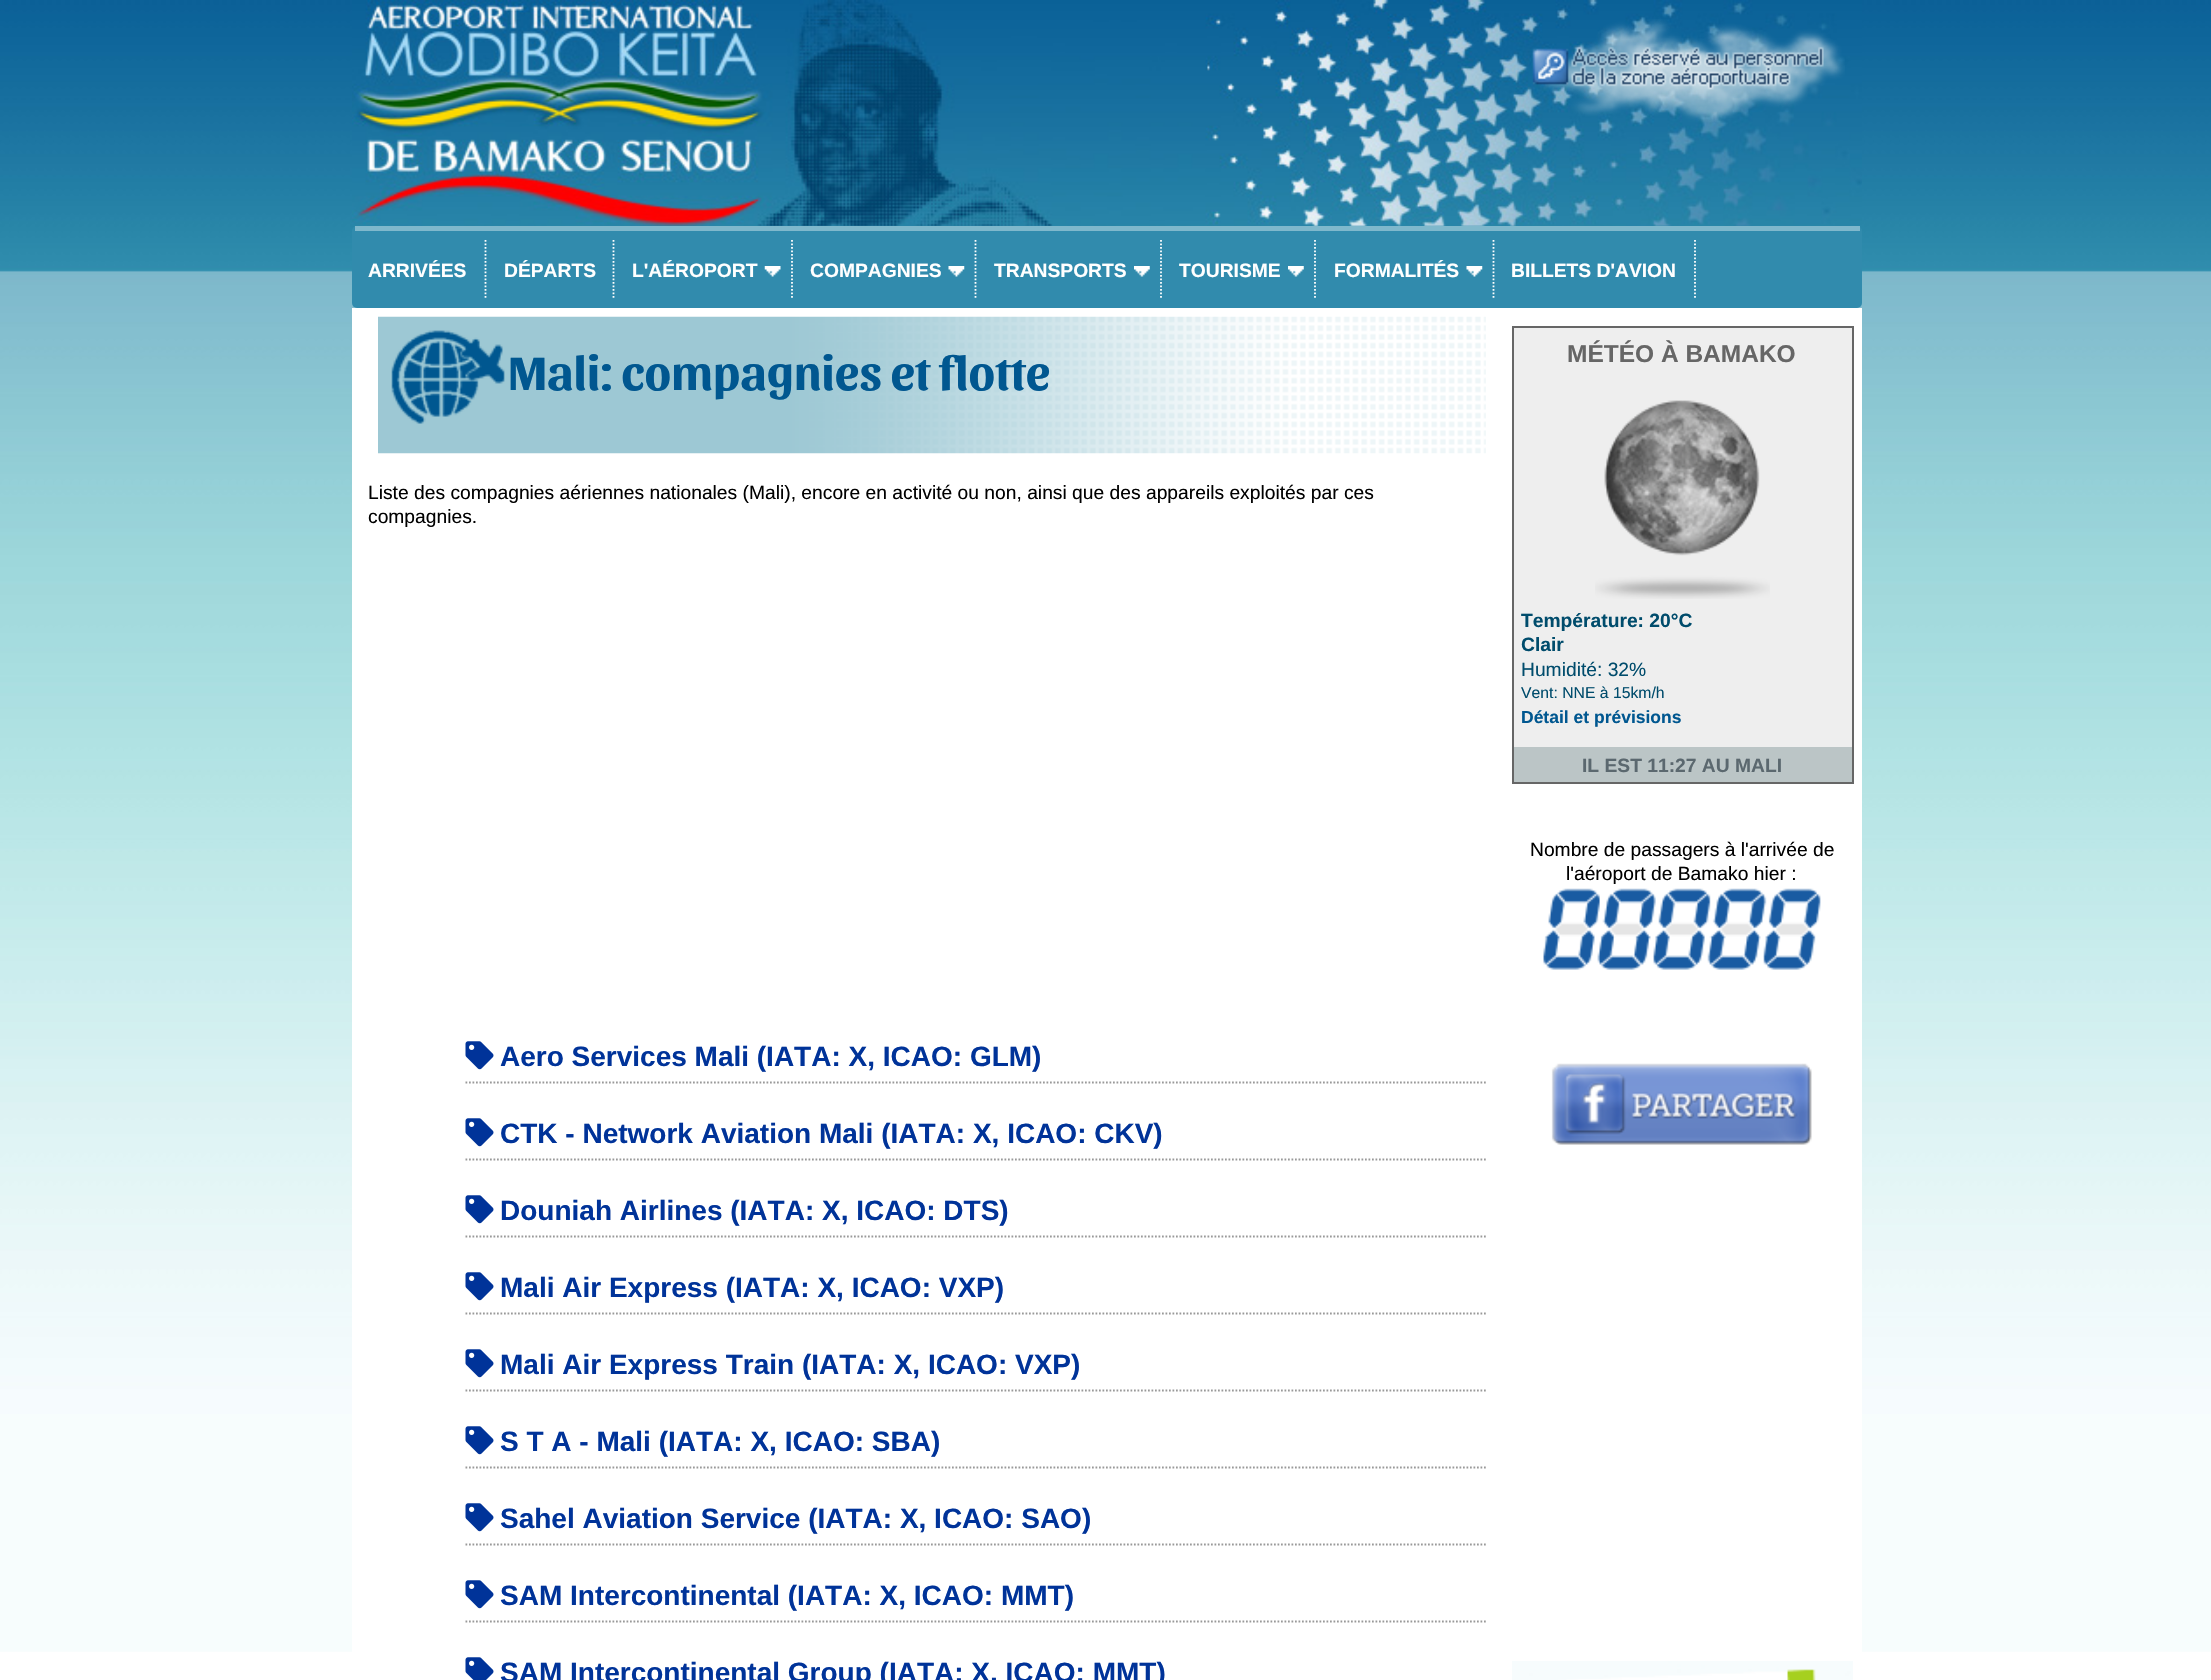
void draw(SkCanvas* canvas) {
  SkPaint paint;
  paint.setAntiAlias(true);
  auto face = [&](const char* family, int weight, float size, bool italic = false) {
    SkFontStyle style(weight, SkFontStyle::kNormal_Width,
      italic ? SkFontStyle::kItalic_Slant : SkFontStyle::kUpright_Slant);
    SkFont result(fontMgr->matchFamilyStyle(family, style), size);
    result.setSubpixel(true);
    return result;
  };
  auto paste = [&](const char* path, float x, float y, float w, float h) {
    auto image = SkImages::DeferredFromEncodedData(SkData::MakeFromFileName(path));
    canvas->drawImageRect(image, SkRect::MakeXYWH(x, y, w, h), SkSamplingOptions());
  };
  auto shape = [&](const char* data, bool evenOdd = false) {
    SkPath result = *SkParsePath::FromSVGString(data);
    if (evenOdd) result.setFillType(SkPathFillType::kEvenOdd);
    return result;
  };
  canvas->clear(0xffffffff);
  paste("img/1.png", 0, 0, 2211, 1652);
  paste("img/2.png", 352, 0, 1510, 226);
  paste("img/3.png", 1532, 19, 313, 103);
  paint.setColor(0xff318bad);
  canvas->drawRoundRect(SkRect::MakeXYWH(352, 226, 1510, 82), 5, 5, paint);
  paint.setColor(0xff7fb8cc);
  canvas->drawRect(SkRect::MakeXYWH(355, 226, 1505, 5), paint);
  paint.setStroke(true);
  paint.setStrokeWidth(1.8f);
  paint.setColor(0xffffffff);
  paint.setPathEffect(SkDashPathEffect::Make({{1.75f, 1.75f}}, 0));
  canvas->drawPath(shape("M485.5 240V299"), paint);
  paint.setPathEffect(nullptr);
  paint.setPathEffect(SkDashPathEffect::Make({{1.75f, 1.75f}}, 0));
  canvas->drawPath(shape("M613.5 240V299"), paint);
  paint.setPathEffect(nullptr);
  paint.setPathEffect(SkDashPathEffect::Make({{1.75f, 1.75f}}, 0));
  canvas->drawPath(shape("M792 240V299"), paint);
  paint.setPathEffect(nullptr);
  paste("img/4.png", 764, 266, 17, 11);
  paint.setPathEffect(SkDashPathEffect::Make({{1.75f, 1.75f}}, 0));
  canvas->drawPath(shape("M975.5 240V299"), paint);
  paint.setPathEffect(nullptr);
  paste("img/5.png", 948, 266, 17, 11);
  paint.setPathEffect(SkDashPathEffect::Make({{1.75f, 1.75f}}, 0));
  canvas->drawPath(shape("M1161 240V299"), paint);
  paint.setPathEffect(nullptr);
  paste("img/6.png", 1134, 266, 16, 11);
  paint.setPathEffect(SkDashPathEffect::Make({{1.75f, 1.75f}}, 0));
  canvas->drawPath(shape("M1315 240V299"), paint);
  paint.setPathEffect(nullptr);
  paste("img/7.png", 1288, 266, 16, 11);
  paint.setPathEffect(SkDashPathEffect::Make({{1.75f, 1.75f}}, 0));
  canvas->drawPath(shape("M1493.5 240V299"), paint);
  paint.setPathEffect(nullptr);
  paste("img/5.png", 1466, 266, 17, 11);
  paint.setPathEffect(SkDashPathEffect::Make({{1.75f, 1.75f}}, 0));
  canvas->drawPath(shape("M1695 240V299"), paint);
  paint.setPathEffect(nullptr);
  paint.setStroke(false);
  canvas->drawRect(SkRect::MakeXYWH(352, 308, 1510, 1344), paint);
  paste("img/8.png", 378, 316, 1108, 138);
  paint.setStroke(true);
  paint.setColor(0xff999999);
  paint.setPathEffect(SkDashPathEffect::Make({{1.75f, 1.75f}}, 0));
  canvas->drawPath(shape("M465.5 1082.5H1486"), paint);
  paint.setPathEffect(nullptr);
  paste("img/9.png", 465, 1041, 29, 29);
  paint.setPathEffect(SkDashPathEffect::Make({{1.75f, 1.75f}}, 0));
  canvas->drawPath(shape("M465.5 1159.5H1486"), paint);
  paint.setPathEffect(nullptr);
  paste("img/9.png", 465, 1118, 29, 29);
  paint.setPathEffect(SkDashPathEffect::Make({{1.75f, 1.75f}}, 0));
  canvas->drawPath(shape("M465.5 1236.5H1486"), paint);
  paint.setPathEffect(nullptr);
  paste("img/9.png", 465, 1195, 29, 29);
  paint.setPathEffect(SkDashPathEffect::Make({{1.75f, 1.75f}}, 0));
  canvas->drawPath(shape("M465.5 1313.5H1486"), paint);
  paint.setPathEffect(nullptr);
  paste("img/9.png", 465, 1272, 29, 29);
  paint.setPathEffect(SkDashPathEffect::Make({{1.75f, 1.75f}}, 0));
  canvas->drawPath(shape("M465.5 1390.5H1486"), paint);
  paint.setPathEffect(nullptr);
  paste("img/9.png", 465, 1349, 29, 29);
  paint.setPathEffect(SkDashPathEffect::Make({{1.75f, 1.75f}}, 0));
  canvas->drawPath(shape("M465.5 1467.5H1486"), paint);
  paint.setPathEffect(nullptr);
  paste("img/9.png", 465, 1426, 29, 29);
  paint.setPathEffect(SkDashPathEffect::Make({{1.75f, 1.75f}}, 0));
  canvas->drawPath(shape("M465.5 1544.5H1486"), paint);
  paint.setPathEffect(nullptr);
  paste("img/9.png", 465, 1503, 29, 29);
  paint.setPathEffect(SkDashPathEffect::Make({{1.75f, 1.75f}}, 0));
  canvas->drawPath(shape("M465.5 1621.5H1486"), paint);
  paint.setPathEffect(nullptr);
  paste("img/9.png", 465, 1580, 29, 29);
  paste("img/10.png", 465, 1657, 29, 23);
  paint.setStroke(false);
  {
    const struct { float x, y, w, h; SkColor color; } items[] = {
      {1514, 328, 338, 419, 0xffeeeeee},
      {1512, 326, 341, 2, 0xff666666},
      {1852, 326, 2, 458, 0xff666666},
      {1512, 326, 2, 421, 0xff666666},
    };
    for (auto [x, y, w, h, color] : items) {
      paint.setColor(color);
      canvas->drawRect(SkRect::MakeXYWH(x, y, w, h), paint);
    }
  }
  paste("img/11.png", 1595, 400, 175, 199);
  {
    const struct { float x, y, w, h; SkColor color; } items[] = {
      {1514, 747, 338, 35, 0xffbbc5c6},
      {1512, 782, 341, 2, 0xff666666},
      {1512, 747, 2, 37, 0xff666666},
    };
    for (auto [x, y, w, h, color] : items) {
      paint.setColor(color);
      canvas->drawRect(SkRect::MakeXYWH(x, y, w, h), paint);
    }
  }
  paste("img/12.png", 1543, 888, 278, 82);
  paste("img/13.png", 1551, 1063, 261, 82);
  paste("img/14.png", 1512, 1661, 341, 19);
  auto f0 = face("Liberation Sans", 700, 19.25f);
  paint.setColor(0xffffffff);
  {
    const struct { const char* s; float x, y; } items[] = {
      {"ARRIVÉES", 368, 277},
      {"DÉPARTS", 504, 277},
      {"L'AÉROPORT", 632, 277},
      {"COMPAGNIES", 810, 277},
      {"TRANSPORTS", 994, 277},
      {"TOURISME", 1179, 277},
      {"FORMALITÉS", 1334, 277},
      {"BILLETS D'AVION", 1511, 277},
    };
    for (auto [s, x, y] : items) {
      canvas->drawString(s, x, y, f0, paint);
    }
  }
  auto f1 = face("Sansita", 700, 49);
  paint.setColor(0xff005790);
  canvas->drawString("Mali: compagnies et flotte", 508, 390, f1, paint);
  auto f2 = face("Liberation Sans", 400, 19.25f);
  paint.setColor(0xff000000);
  canvas->drawString("Liste des compagnies aériennes nationales (Mali), encore en activité ou non, ainsi que des appareils exploités par ces", 368, 499, f2, paint);
  canvas->drawString("compagnies.", 368, 523, f2, paint);
  auto f3 = face("Liberation Sans", 700, 28);
  paint.setColor(0xff003399);
  {
    const struct { const char* s; float x, y; } items[] = {
      {"Aero Services Mali (IATA: X, ICAO: GLM)", 500, 1066},
      {"CTK - Network Aviation Mali (IATA: X, ICAO: CKV)", 500, 1143},
      {"Douniah Airlines (IATA: X, ICAO: DTS)", 500, 1220},
      {"Mali Air Express (IATA: X, ICAO: VXP)", 500, 1297},
      {"Mali Air Express Train (IATA: X, ICAO: VXP)", 500, 1374},
      {"S T A - Mali (IATA: X, ICAO: SBA)", 500, 1451},
      {"Sahel Aviation Service (IATA: X, ICAO: SAO)", 500, 1528},
      {"SAM Intercontinental (IATA: X, ICAO: MMT)", 500, 1605},
      {"SAM Intercontinental Group (IATA: X, ICAO: MMT)", 500, 1682},
    };
    for (auto [s, x, y] : items) {
      canvas->drawString(s, x, y, f3, paint);
    }
  }
  auto f4 = face("Liberation Sans", 700, 24.5f);
  paint.setColor(0xff666666);
  canvas->drawString("MÉTÉO À BAMAKO", 1567, 362, f4, paint);
  paint.setColor(0xff004c6c);
  canvas->drawString("Température: 20°C", 1521, 627, f0, paint);
  canvas->drawString("Clair", 1521, 651, f0, paint);
  canvas->drawString("Humidité: 32%", 1521, 676, f2, paint);
  auto f5 = face("Liberation Sans", 400, 15.75f);
  canvas->drawString("Vent: NNE à 15km/h", 1521, 698, f5, paint);
  auto f6 = face("Liberation Sans", 700, 17.5f);
  paint.setColor(0xff005790);
  canvas->drawString("Détail et prévisions", 1521, 723, f6, paint);
  paint.setColor(0xff5b686f);
  canvas->drawString("IL EST 11:27 AU MALI", 1582, 772, f0, paint);
  paint.setColor(0xff000000);
  canvas->drawString("Nombre de passagers à l'arrivée de", 1530, 856, f2, paint);
  canvas->drawString("l'aéroport de Bamako hier :", 1566, 880, f2, paint);
}
